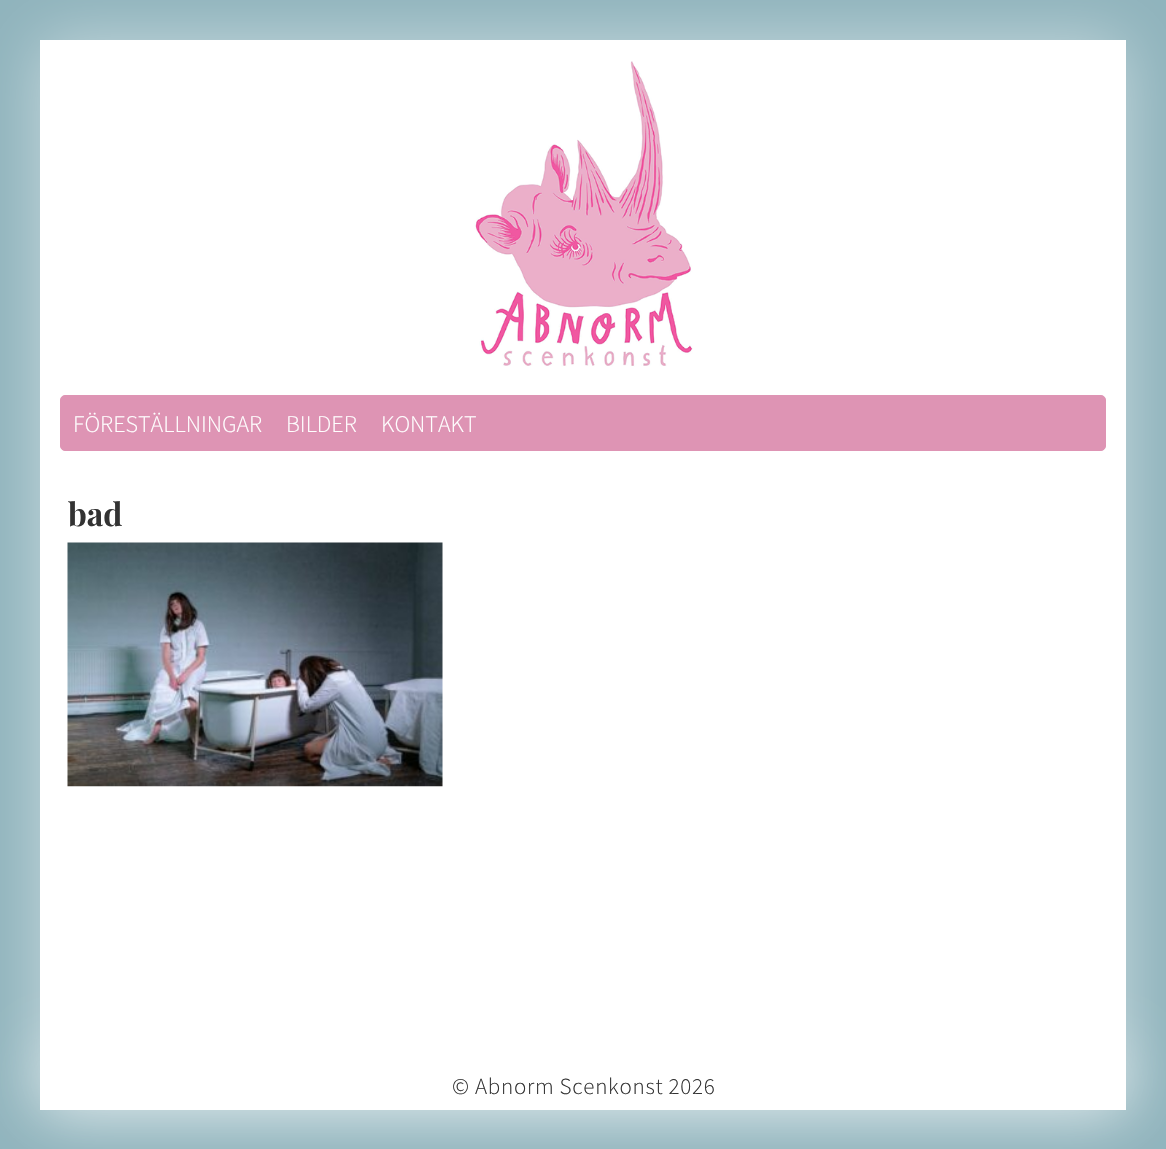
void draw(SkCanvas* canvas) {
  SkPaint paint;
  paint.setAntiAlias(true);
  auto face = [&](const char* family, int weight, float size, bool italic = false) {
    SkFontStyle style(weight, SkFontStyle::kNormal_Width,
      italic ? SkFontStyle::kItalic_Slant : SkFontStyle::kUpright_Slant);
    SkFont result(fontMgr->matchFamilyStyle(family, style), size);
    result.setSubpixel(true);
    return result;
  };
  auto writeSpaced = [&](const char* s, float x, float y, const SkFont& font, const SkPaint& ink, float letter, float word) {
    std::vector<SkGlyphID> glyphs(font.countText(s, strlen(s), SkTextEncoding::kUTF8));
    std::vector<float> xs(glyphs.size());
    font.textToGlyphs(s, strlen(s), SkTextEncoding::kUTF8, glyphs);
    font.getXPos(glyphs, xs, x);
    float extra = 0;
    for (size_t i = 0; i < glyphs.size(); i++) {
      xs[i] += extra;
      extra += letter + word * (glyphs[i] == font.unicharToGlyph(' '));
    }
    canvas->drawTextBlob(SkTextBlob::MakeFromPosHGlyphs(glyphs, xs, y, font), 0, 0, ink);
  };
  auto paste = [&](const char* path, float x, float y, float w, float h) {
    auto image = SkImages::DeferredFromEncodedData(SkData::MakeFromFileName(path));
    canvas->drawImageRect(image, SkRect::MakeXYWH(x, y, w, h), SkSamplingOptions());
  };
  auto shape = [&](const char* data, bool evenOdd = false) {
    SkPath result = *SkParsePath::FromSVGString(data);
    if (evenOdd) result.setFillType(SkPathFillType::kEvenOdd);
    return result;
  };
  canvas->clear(0xff8fb3bc);
  paint.setColor(0x80ffffff);
  paint.setMaskFilter(SkMaskFilter::MakeBlur(kNormal_SkBlurStyle, 31));
  canvas->drawRect(SkRect::MakeXYWH(40, 40, 1086, 1070), paint);
  paint.setMaskFilter(nullptr);
  paint.setColor(0xffffffff);
  canvas->drawRect(SkRect::MakeXYWH(40, 40, 1086, 1070), paint);
  paste("img/1.png", 474, 61, 219, 306);
  paint.setColor(0xffde94b4);
  canvas->drawRoundRect(SkRect::MakeXYWH(60.5f, 395.5f, 1045, 55), 4.5f, 4.5f, paint);
  paint.setStroke(true);
  paint.setStrokeWidth(1);
  canvas->drawRoundRect(SkRect::MakeXYWH(60.5f, 395.5f, 1045, 55), 4.5f, 4.5f, paint);
  paste("img/2.png", 67, 542, 376, 245);
  canvas->save();
  canvas->clipPath(shape("M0 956H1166V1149H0ZM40 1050H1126V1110H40Z", true), true);
  paint.setStroke(false);
  paint.setColor(0x80ffffff);
  paint.setMaskFilter(SkMaskFilter::MakeBlur(kNormal_SkBlurStyle, 31));
  canvas->drawRect(SkRect::MakeXYWH(40, 1050, 1086, 60), paint);
  paint.setMaskFilter(nullptr);
  canvas->restore();
  auto f0 = face("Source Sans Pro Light", 300, 24);
  paint.setColor(0xffffffff);
  {
    const struct { const char* s; float x, y; } items[] = {
      {"FÖRESTÄLLNINGAR", 73, 432},
      {"BILDER", 286, 432},
      {"KONTAKT", 381, 432},
    };
    for (auto [s, x, y] : items) {
      canvas->drawString(s, x, y, f0, paint);
    }
  }
  auto f1 = face("Playfair Display", 700, 32);
  paint.setColor(0xff333333);
  canvas->drawString("bad", 68, 526, f1, paint);
  auto f2 = face("Source Sans Pro Light", 300, 23);
  writeSpaced("© Abnorm Scenkonst 2026", 452, 1094, f2, paint, 0.7f, 0);
}
